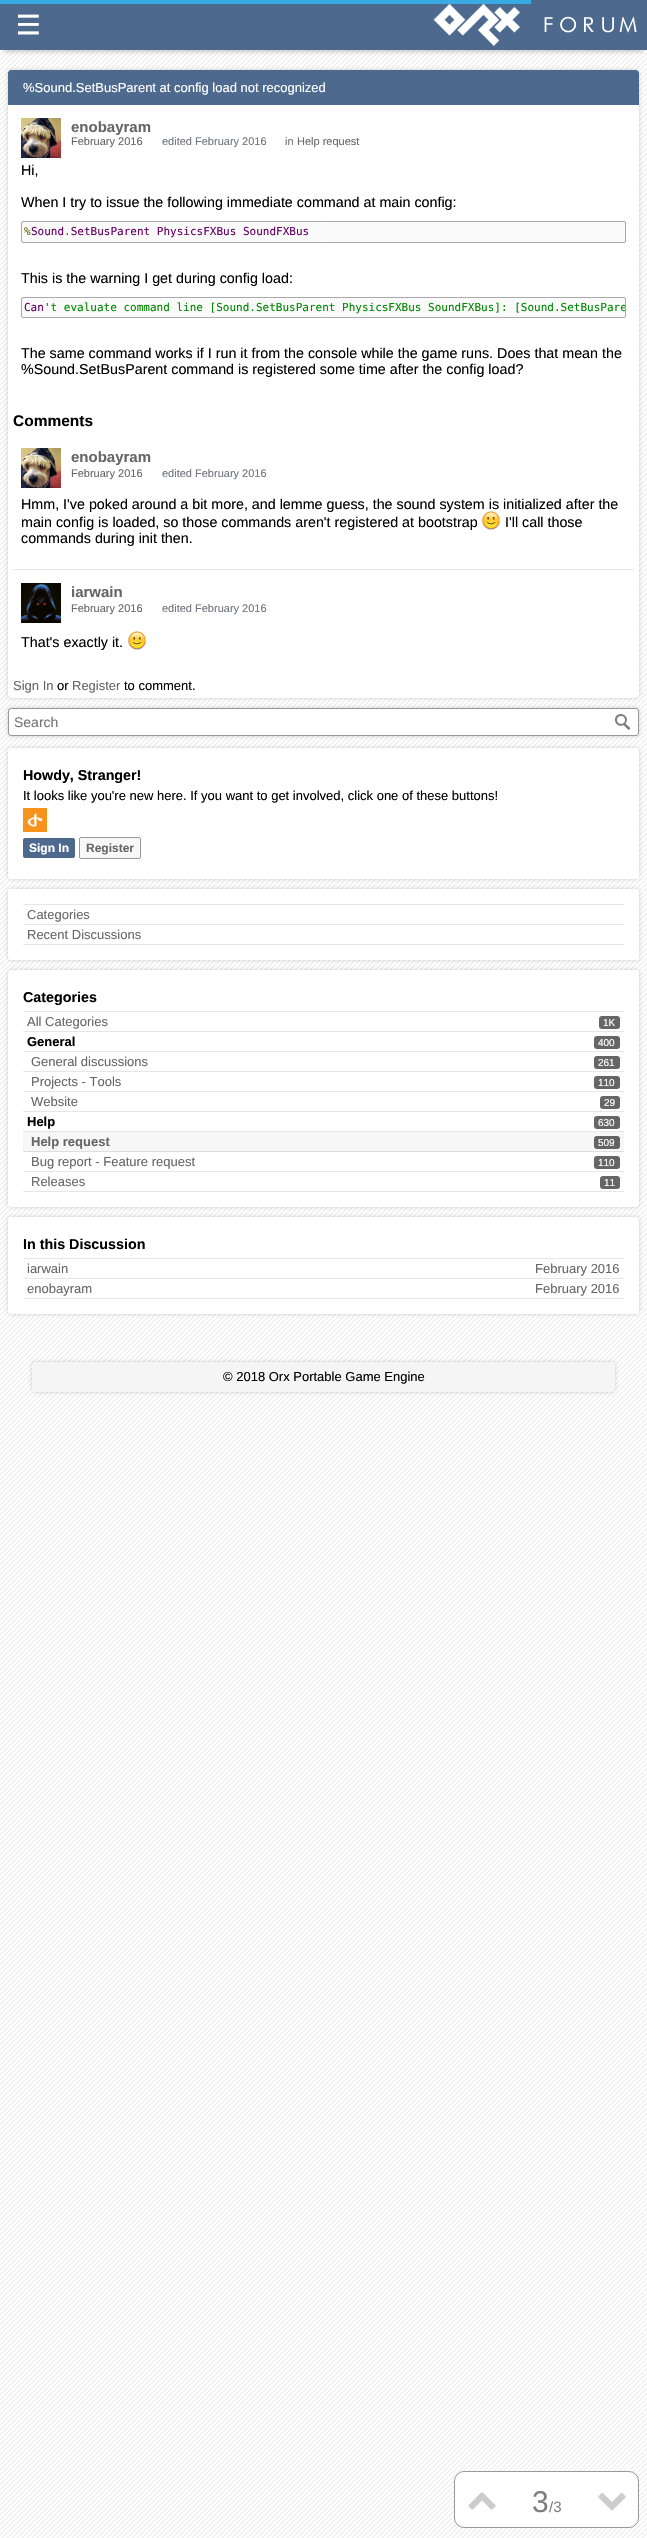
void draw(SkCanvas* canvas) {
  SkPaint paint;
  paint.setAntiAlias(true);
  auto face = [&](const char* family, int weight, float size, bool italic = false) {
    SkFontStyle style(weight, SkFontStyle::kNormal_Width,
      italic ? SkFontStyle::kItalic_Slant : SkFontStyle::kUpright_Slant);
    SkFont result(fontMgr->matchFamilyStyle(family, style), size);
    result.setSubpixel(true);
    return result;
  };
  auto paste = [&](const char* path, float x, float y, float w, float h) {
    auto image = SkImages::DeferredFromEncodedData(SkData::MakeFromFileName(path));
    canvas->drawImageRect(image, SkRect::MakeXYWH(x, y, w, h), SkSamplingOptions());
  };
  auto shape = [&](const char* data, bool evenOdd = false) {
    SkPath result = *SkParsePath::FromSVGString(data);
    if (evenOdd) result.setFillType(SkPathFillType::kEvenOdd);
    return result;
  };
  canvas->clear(0xffffffff);
  paste("img/1.png", 0, 50, 647, 2488);
  paint.setColor(0x33000000);
  paint.setMaskFilter(SkMaskFilter::MakeBlur(kNormal_SkBlurStyle, 2));
  canvas->drawRect(SkRect::MakeXYWH(4, 10, 639, 42), paint);
  paint.setMaskFilter(nullptr);
  paint.setColor(0xff4d698e);
  canvas->drawRect(SkRect::MakeXYWH(0, 0, 647, 50), paint);
  paint.setColor(0xff38abe3);
  canvas->drawRect(SkRect::MakeXYWH(0, 0, 531, 4), paint);
  paste("img/2.png", 433, 4, 204, 42);
  paint.setColor(0x33000000);
  paint.setMaskFilter(SkMaskFilter::MakeBlur(kNormal_SkBlurStyle, 2));
  canvas->drawRoundRect(SkRect::MakeXYWH(8, 70, 631, 628), 3, 3, paint);
  paint.setMaskFilter(nullptr);
  paint.setColor(0xffffffff);
  canvas->drawRoundRect(SkRect::MakeXYWH(8, 70, 631, 628), 3, 3, paint);
  paint.setColor(0xff4d698e);
  canvas->drawPath(shape("M11 70H636C637.5 70 639 71.5 639 73V105H8V73C8 71.5 9.5 70 11 70Z"), paint);
  paste("img/3.png", 21, 118, 40, 40);
  paint.setColor(0xfffafafa);
  canvas->drawRoundRect(SkRect::MakeXYWH(21.5f, 221.5f, 604, 21), 1.5f, 1.5f, paint);
  paint.setStroke(true);
  paint.setStrokeWidth(1);
  paint.setColor(0xffaaaaaa);
  canvas->drawRoundRect(SkRect::MakeXYWH(21.5f, 221.5f, 604, 21), 1.5f, 1.5f, paint);
  paint.setStroke(false);
  paint.setColor(0xfffafafa);
  canvas->drawRoundRect(SkRect::MakeXYWH(21.5f, 297.5f, 604, 20), 1.5f, 1.5f, paint);
  paint.setStroke(true);
  paint.setColor(0xffaaaaaa);
  canvas->drawRoundRect(SkRect::MakeXYWH(21.5f, 297.5f, 604, 20), 1.5f, 1.5f, paint);
  paint.setStroke(false);
  paint.setColor(0xffe6e6e6);
  canvas->drawRect(SkRect::MakeXYWH(13, 569, 621, 1), paint);
  paste("img/3.png", 21, 448, 40, 40);
  paste("img/5.png", 21, 583, 40, 40);
  paste("img/4.png", 128, 631, 18, 19);
  paint.setColor(0x33000000);
  paint.setMaskFilter(SkMaskFilter::MakeBlur(kNormal_SkBlurStyle, 2));
  canvas->drawRoundRect(SkRect::MakeXYWH(8, 708, 631, 28), 3, 3, paint);
  paint.setMaskFilter(nullptr);
  paint.setColor(0xffffffff);
  canvas->drawRoundRect(SkRect::MakeXYWH(8, 708, 631, 28), 3, 3, paint);
  paint.setStroke(true);
  paint.setColor(0x66000000);
  canvas->drawRoundRect(SkRect::MakeXYWH(8.5f, 708.5f, 630, 27), 2.5f, 2.5f, paint);
  paste("img/6.png", 615, 714, 16, 16);
  paint.setStroke(false);
  paint.setColor(0x33000000);
  paint.setMaskFilter(SkMaskFilter::MakeBlur(kNormal_SkBlurStyle, 2));
  canvas->drawRoundRect(SkRect::MakeXYWH(8, 748, 631, 131), 3, 3, paint);
  paint.setMaskFilter(nullptr);
  paint.setColor(0xffffffff);
  canvas->drawRoundRect(SkRect::MakeXYWH(8, 748, 631, 131), 3, 3, paint);
  paint.setColor(0xfff7921c);
  canvas->drawRect(SkRect::MakeXYWH(23, 808, 24, 24), paint);
  paste("img/7.png", 27, 813, 16, 14);
  paint.setColor(0xff4d698e);
  canvas->drawRoundRect(SkRect::MakeXYWH(23, 838, 52, 20), 2, 2, paint);
  paint.setColor(0xfff8f8f8);
  canvas->drawRoundRect(SkRect::MakeXYWH(79.5f, 837.5f, 61, 21), 1.5f, 1.5f, paint);
  paint.setStroke(true);
  paint.setColor(0xff999999);
  canvas->drawRoundRect(SkRect::MakeXYWH(79.5f, 837.5f, 61, 21), 1.5f, 1.5f, paint);
  paint.setStroke(false);
  paint.setColor(0x33000000);
  paint.setMaskFilter(SkMaskFilter::MakeBlur(kNormal_SkBlurStyle, 2));
  canvas->drawRoundRect(SkRect::MakeXYWH(8, 889, 631, 71), 3, 3, paint);
  paint.setMaskFilter(nullptr);
  paint.setColor(0xffffffff);
  canvas->drawRoundRect(SkRect::MakeXYWH(8, 889, 631, 71), 3, 3, paint);
  {
    const struct { float x, y, w, h; SkColor color; } items[] = {
      {23, 904, 601, 1, 0xffe6e6e6},
      {23, 924, 601, 1, 0xffe6e6e6},
      {23, 944, 601, 1, 0xffe6e6e6},
    };
    for (auto [x, y, w, h, color] : items) {
      paint.setColor(color);
      canvas->drawRect(SkRect::MakeXYWH(x, y, w, h), paint);
    }
  }
  paint.setColor(0x33000000);
  paint.setMaskFilter(SkMaskFilter::MakeBlur(kNormal_SkBlurStyle, 2));
  canvas->drawRoundRect(SkRect::MakeXYWH(8, 970, 631, 237), 3, 3, paint);
  paint.setMaskFilter(nullptr);
  paint.setColor(0xffffffff);
  canvas->drawRoundRect(SkRect::MakeXYWH(8, 970, 631, 237), 3, 3, paint);
  paint.setColor(0xffe6e6e6);
  canvas->drawRect(SkRect::MakeXYWH(23, 1011, 601, 1), paint);
  canvas->drawRect(SkRect::MakeXYWH(23, 1031, 601, 1), paint);
  paint.setColor(0xff666666);
  canvas->drawRoundRect(SkRect::MakeXYWH(599, 1016, 21, 13), 3, 3, paint);
  paint.setColor(0xffe6e6e6);
  canvas->drawRect(SkRect::MakeXYWH(23, 1051, 601, 1), paint);
  paint.setColor(0xff666666);
  canvas->drawRoundRect(SkRect::MakeXYWH(594, 1036, 26, 13), 3, 3, paint);
  paint.setColor(0xffe6e6e6);
  canvas->drawRect(SkRect::MakeXYWH(23, 1071, 601, 1), paint);
  paint.setColor(0xff666666);
  canvas->drawRoundRect(SkRect::MakeXYWH(594, 1056, 26, 13), 3, 3, paint);
  paint.setColor(0xffe6e6e6);
  canvas->drawRect(SkRect::MakeXYWH(23, 1091, 601, 1), paint);
  paint.setColor(0xff666666);
  canvas->drawRoundRect(SkRect::MakeXYWH(594, 1076, 26, 13), 3, 3, paint);
  paint.setColor(0xffe6e6e6);
  canvas->drawRect(SkRect::MakeXYWH(23, 1111, 601, 1), paint);
  paint.setColor(0xff666666);
  canvas->drawRoundRect(SkRect::MakeXYWH(600, 1096, 20, 13), 3, 3, paint);
  paint.setColor(0xffe6e6e6);
  canvas->drawRect(SkRect::MakeXYWH(23, 1131, 601, 1), paint);
  paint.setColor(0xff666666);
  canvas->drawRoundRect(SkRect::MakeXYWH(594, 1116, 26, 13), 3, 3, paint);
  paint.setColor(0xfff7f7f7);
  canvas->drawRect(SkRect::MakeXYWH(23, 1132, 601, 19), paint);
  paint.setColor(0xffdedede);
  canvas->drawRect(SkRect::MakeXYWH(23, 1151, 601, 1), paint);
  paint.setColor(0xff636363);
  canvas->drawRoundRect(SkRect::MakeXYWH(594, 1136, 26, 13), 3, 3, paint);
  paint.setColor(0xffe6e6e6);
  canvas->drawRect(SkRect::MakeXYWH(23, 1171, 601, 1), paint);
  paint.setColor(0xff666666);
  canvas->drawRoundRect(SkRect::MakeXYWH(594, 1156, 26, 13), 3, 3, paint);
  paint.setColor(0xffe6e6e6);
  canvas->drawRect(SkRect::MakeXYWH(23, 1191, 601, 1), paint);
  paint.setColor(0xff666666);
  canvas->drawRoundRect(SkRect::MakeXYWH(600, 1176, 20, 13), 3, 3, paint);
  paint.setColor(0x33000000);
  paint.setMaskFilter(SkMaskFilter::MakeBlur(kNormal_SkBlurStyle, 2));
  canvas->drawRoundRect(SkRect::MakeXYWH(8, 1217, 631, 97), 3, 3, paint);
  paint.setMaskFilter(nullptr);
  paint.setColor(0xffffffff);
  canvas->drawRoundRect(SkRect::MakeXYWH(8, 1217, 631, 97), 3, 3, paint);
  {
    const struct { float x, y, w, h; SkColor color; } items[] = {
      {23, 1258, 601, 1, 0xffe6e6e6},
      {23, 1278, 601, 1, 0xffe6e6e6},
      {23, 1298, 601, 1, 0xffe6e6e6},
    };
    for (auto [x, y, w, h, color] : items) {
      paint.setColor(color);
      canvas->drawRect(SkRect::MakeXYWH(x, y, w, h), paint);
    }
  }
  paint.setColor(0x33000000);
  paint.setMaskFilter(SkMaskFilter::MakeBlur(kNormal_SkBlurStyle, 2));
  canvas->drawRoundRect(SkRect::MakeXYWH(32, 1362, 583, 30), 3, 3, paint);
  paint.setMaskFilter(nullptr);
  paint.setColor(0xfff5f5f5);
  canvas->drawRoundRect(SkRect::MakeXYWH(32, 1362, 583, 30), 3, 3, paint);
  paint.setColor(0xe6ffffff);
  canvas->drawRoundRect(SkRect::MakeXYWH(454, 2471, 185, 57), 10, 10, paint);
  paint.setStroke(true);
  paint.setColor(0x66000000);
  canvas->drawRoundRect(SkRect::MakeXYWH(454.5f, 2471.5f, 184, 56), 9.5f, 9.5f, paint);
  auto f0 = face("Liberation Sans", 400, 30);
  paint.setStroke(false);
  paint.setColor(0xffffffff);
  canvas->save();
  canvas->rotate(90, 18, 12);
  canvas->drawString("III", 18, 12, f0, paint);
  canvas->restore();
  auto f1 = face("Liberation Sans", 400, 13);
  canvas->drawString("%Sound.SetBusParent at config load not recognized", 23, 92, f1, paint);
  auto f2 = face("Liberation Sans", 700, 15);
  paint.setColor(0xff666666);
  canvas->drawString("enobayram", 71, 132, f2, paint);
  auto f3 = face("Liberation Sans", 400, 11);
  canvas->drawString("February 2016", 71, 145, f3, paint);
  paint.setColor(0xff70727c);
  canvas->drawString("edited February 2016", 162, 145, f3, paint);
  canvas->drawString("in", 285, 145, f3, paint);
  paint.setColor(0xff666666);
  canvas->drawString("Help request", 297, 145, f3, paint);
  auto f4 = face("Liberation Sans", 400, 14.3f);
  paint.setColor(0xff000000);
  canvas->drawString("Hi,", 21, 175, f4, paint);
  canvas->drawString("When I try to issue the following immediate command at main config:", 21, 207, f4, paint);
  auto f5 = face("DejaVu Sans Mono", 400, 11);
  paint.setColor(0xff666600);
  canvas->drawString("%", 24, 235, f5, paint);
  paint.setColor(0xff660066);
  canvas->drawString("Sound SetBusParent PhysicsFXBus SoundFXBus", 31, 235, f5, paint);
  paint.setColor(0xff666600);
  canvas->drawString(".", 64, 235, f5, paint);
  paint.setColor(0xff000000);
  canvas->drawString("This is the warning I get during config load:", 21, 283, f4, paint);
  paint.setColor(0xff660066);
  canvas->drawString("Can", 24, 311, f5, paint);
  canvas->save();
  canvas->clipPath(shape("M23 298H624C624.5 298 625 298.5 625 299V316C625 316.5 624.5 317 624 317H23C22.5 317 22 316.5 22 316V299C22 298.5 22.5 298 23 298Z"), true);
  paint.setColor(0xff008800);
  canvas->drawString("'t evaluate command line [Sound.SetBusParent PhysicsFXBus SoundFXBus]: [Sound.SetBusPare", 44, 311, f5, paint);
  canvas->restore();
  paint.setColor(0xff000000);
  canvas->drawString("The same command works if I run it from the console while the game runs. Does that mean the", 21, 358, f4, paint);
  canvas->drawString("%Sound.SetBusParent command is registered some time after the config load?", 21, 374, f4, paint);
  auto f6 = face("Liberation Sans", 700, 15.5f);
  canvas->drawString("Comments", 13, 426, f6, paint);
  paint.setColor(0xff666666);
  canvas->drawString("enobayram", 71, 462, f2, paint);
  canvas->drawString("February 2016", 71, 477, f3, paint);
  paint.setColor(0xff70727c);
  canvas->drawString("edited February 2016", 162, 477, f3, paint);
  paint.setColor(0xff000000);
  canvas->drawString("Hmm, I've poked around a bit more, and lemme guess, the sound system is initialized after the", 21, 509, f4, paint);
  canvas->drawString("main config is loaded, so those commands aren't registered at bootstrap", 21, 527, f4, paint);
  paste("img/4.png", 482, 511, 18, 19);
  canvas->drawString("I'll call those", 505, 527, f4, paint);
  canvas->drawString("commands during init then.", 21, 543, f4, paint);
  paint.setColor(0xff666666);
  canvas->drawString("iarwain", 71, 597, f2, paint);
  canvas->drawString("February 2016", 71, 612, f3, paint);
  paint.setColor(0xff70727c);
  canvas->drawString("edited February 2016", 162, 612, f3, paint);
  paint.setColor(0xff000000);
  canvas->drawString("That's exactly it.", 21, 647, f4, paint);
  paint.setColor(0xff666666);
  canvas->drawString("Sign In", 13, 690, f1, paint);
  paint.setColor(0xff000000);
  canvas->drawString("or", 57, 690, f1, paint);
  paint.setColor(0xff666666);
  canvas->drawString("Register", 72, 690, f1, paint);
  paint.setColor(0xff000000);
  canvas->drawString("to comment.", 124, 690, f1, paint);
  auto f7 = face("Liberation Sans", 400, 14);
  paint.setColor(0xff757575);
  canvas->drawString("Search", 14, 727, f7, paint);
  auto f8 = face("Liberation Sans", 700, 14.3f);
  paint.setColor(0xff000000);
  canvas->drawString("Howdy, Stranger!", 23, 780, f8, paint);
  canvas->drawString("It looks like you're new here. If you want to get involved, click one of these buttons!", 23, 800, f1, paint);
  auto f9 = face("Liberation Sans", 700, 12);
  paint.setColor(0xffffffff);
  canvas->drawString("Sign In", 29, 852, f9, paint);
  paint.setColor(0xff666666);
  canvas->drawString("Register", 86, 852, f9, paint);
  canvas->drawString("Categories", 27, 919, f1, paint);
  canvas->drawString("Recent Discussions", 27, 939, f1, paint);
  paint.setColor(0xff000000);
  canvas->drawString("Categories", 23, 1002, f8, paint);
  paint.setColor(0xff666666);
  canvas->drawString("All Categories", 27, 1026, f1, paint);
  auto f10 = face("Liberation Sans", 400, 10);
  paint.setColor(0xffffffff);
  canvas->drawString("1K", 603, 1026, f10, paint);
  auto f11 = face("Liberation Sans", 700, 13);
  paint.setColor(0xff000000);
  canvas->drawString("General", 27, 1046, f11, paint);
  paint.setColor(0xffffffff);
  canvas->drawString("400", 598, 1046, f10, paint);
  paint.setColor(0xff666666);
  canvas->drawString("General discussions", 31, 1066, f1, paint);
  paint.setColor(0xffffffff);
  canvas->drawString("261", 598, 1066, f10, paint);
  paint.setColor(0xff666666);
  canvas->drawString("Projects - Tools", 31, 1086, f1, paint);
  paint.setColor(0xffffffff);
  canvas->drawString("110", 598, 1086, f10, paint);
  paint.setColor(0xff666666);
  canvas->drawString("Website", 31, 1106, f1, paint);
  paint.setColor(0xffffffff);
  canvas->drawString("29", 604, 1106, f10, paint);
  paint.setColor(0xff000000);
  canvas->drawString("Help", 27, 1126, f11, paint);
  paint.setColor(0xffffffff);
  canvas->drawString("630", 598, 1126, f10, paint);
  paint.setColor(0xff666666);
  canvas->drawString("Help request", 31, 1146, f11, paint);
  paint.setColor(0xffffffff);
  canvas->drawString("509", 598, 1146, f10, paint);
  paint.setColor(0xff666666);
  canvas->drawString("Bug report - Feature request", 31, 1166, f1, paint);
  paint.setColor(0xffffffff);
  canvas->drawString("110", 598, 1166, f10, paint);
  paint.setColor(0xff666666);
  canvas->drawString("Releases", 31, 1186, f1, paint);
  paint.setColor(0xffffffff);
  canvas->drawString("11", 604, 1186, f10, paint);
  paint.setColor(0xff000000);
  canvas->drawString("In this Discussion", 23, 1249, f8, paint);
  paint.setColor(0xff666666);
  {
    const struct { const char* s; float x, y; } items[] = {
      {"iarwain", 27, 1273},
      {"February 2016", 535, 1273},
      {"enobayram", 27, 1293},
      {"February 2016", 535, 1293},
    };
    for (auto [s, x, y] : items) {
      canvas->drawString(s, x, y, f1, paint);
    }
  }
  paint.setColor(0xff000000);
  canvas->drawString("© 2018 Orx Portable Game Engine", 223, 1381, f1, paint);
  auto f12 = face("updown", 400, 30);
  paint.setColor(0xffcccccc);
  canvas->drawString("▲", 467, 2512, f12, paint);
  paint.setColor(0xff7f7f7f);
  canvas->drawString("3", 532, 2512, f0, paint);
  auto f13 = face("Liberation Sans", 400, 15);
  canvas->drawString("/3", 549, 2512, f13, paint);
  paint.setColor(0xffcccccc);
  canvas->drawString("▼", 597, 2512, f12, paint);
}
